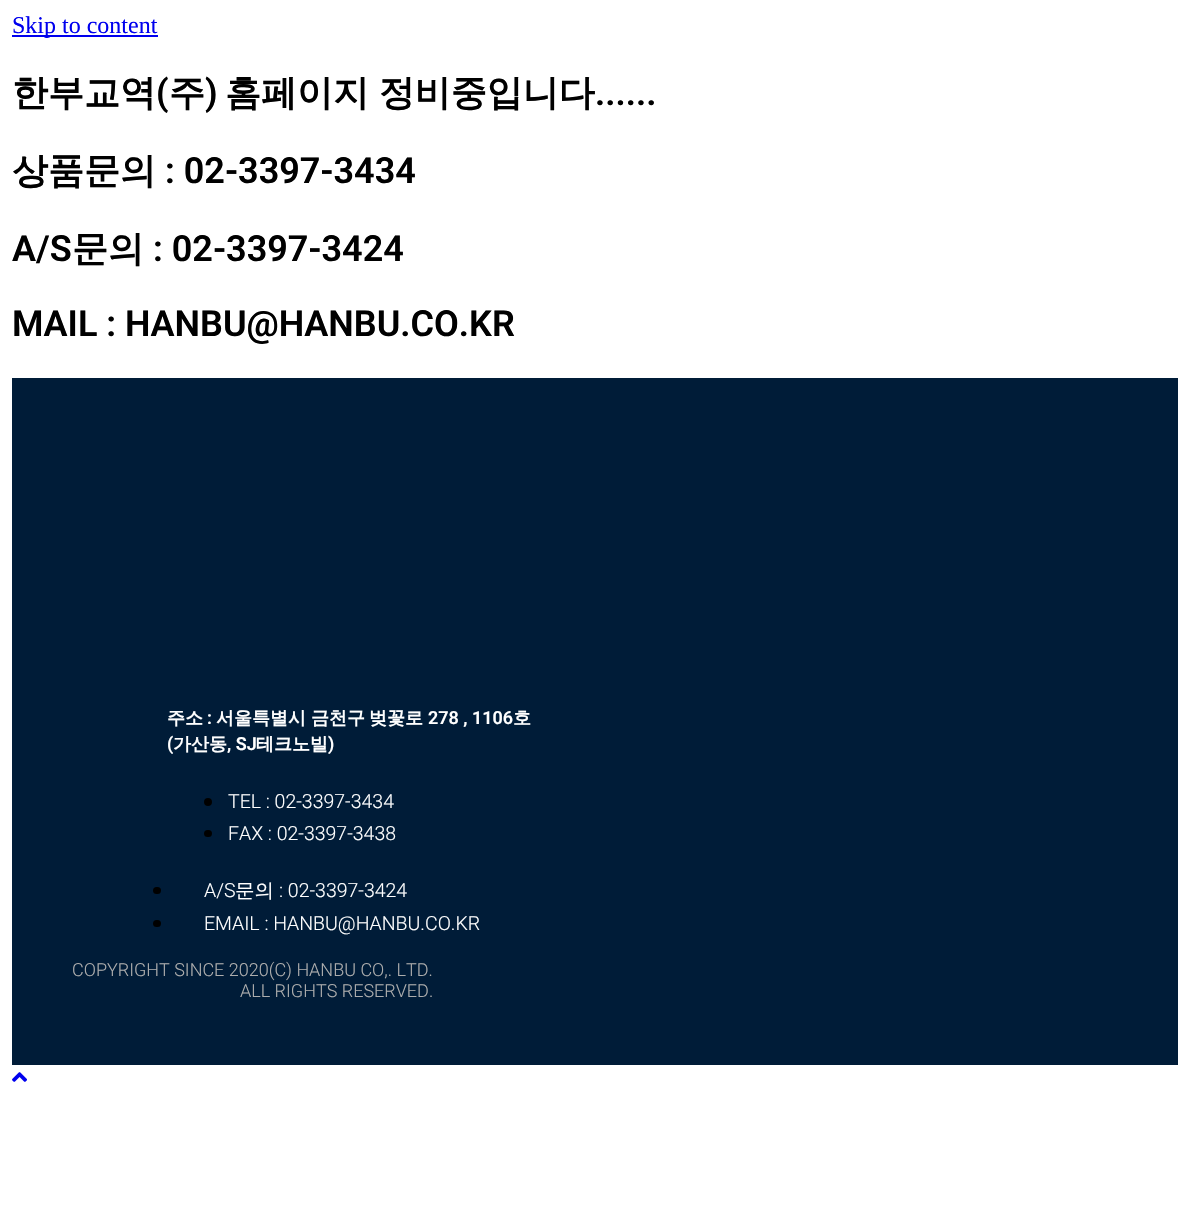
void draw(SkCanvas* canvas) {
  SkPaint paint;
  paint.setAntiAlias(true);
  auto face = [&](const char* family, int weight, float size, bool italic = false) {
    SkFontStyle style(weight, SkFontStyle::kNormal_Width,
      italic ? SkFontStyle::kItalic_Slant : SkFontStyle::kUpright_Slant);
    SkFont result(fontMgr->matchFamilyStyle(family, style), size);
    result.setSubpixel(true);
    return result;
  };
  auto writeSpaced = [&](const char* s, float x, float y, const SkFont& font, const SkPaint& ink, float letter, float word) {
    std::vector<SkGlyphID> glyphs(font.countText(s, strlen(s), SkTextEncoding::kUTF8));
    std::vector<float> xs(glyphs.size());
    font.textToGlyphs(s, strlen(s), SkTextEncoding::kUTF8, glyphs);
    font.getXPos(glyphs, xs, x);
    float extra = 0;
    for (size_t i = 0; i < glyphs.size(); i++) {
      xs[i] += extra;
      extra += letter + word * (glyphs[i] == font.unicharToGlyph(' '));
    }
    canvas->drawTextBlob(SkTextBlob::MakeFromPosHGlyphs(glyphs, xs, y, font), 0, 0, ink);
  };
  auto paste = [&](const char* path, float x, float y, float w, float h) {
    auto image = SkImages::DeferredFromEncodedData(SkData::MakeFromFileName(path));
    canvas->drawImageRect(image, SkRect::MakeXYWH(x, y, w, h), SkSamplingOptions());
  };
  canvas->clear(0xffffffff);
  paint.setColor(0xff0000ee);
  canvas->drawRect(SkRect::MakeXYWH(12, 35, 146, 2), paint);
  paint.setColor(0xff001c38);
  canvas->drawRect(SkRect::MakeXYWH(12, 378, 1166, 687), paint);
  paint.setColor(0xff000000);
  canvas->drawCircle(208, 802, 4, paint);
  canvas->drawRoundRect(SkRect::MakeXYWH(204, 830, 8, 7), 3.5f, 3.5f, paint);
  canvas->drawRoundRect(SkRect::MakeXYWH(153, 887, 8, 7), 3.5f, 3.5f, paint);
  canvas->drawRoundRect(SkRect::MakeXYWH(153, 920, 8, 7), 3.5f, 3.5f, paint);
  paste("img/1.png", 12, 1072, 15, 10);
  auto f0 = face("Liberation Serif", 400, 24);
  paint.setColor(0xff0000ee);
  canvas->drawString("Skip to content", 12, 33, f0, paint);
  auto f1 = face("WenQuanYi Zen Hei", 700, 36);
  paint.setColor(0xff000000);
  canvas->drawString("한부교역", 12, 105, f1, paint);
  auto f2 = face("Roboto", 600, 36);
  canvas->drawString("(", 156, 105, f2, paint);
  canvas->drawString("주", 169, 105, f1, paint);
  canvas->drawString(")", 205, 105, f2, paint);
  writeSpaced("홈페이지 정비중입니다", 225, 105, f1, paint, 0, -1);
  canvas->drawString("......", 595, 105, f2, paint);
  canvas->drawString("상품문의", 12, 183, f1, paint);
  canvas->drawString(": 02-3397-3434", 165, 183, f2, paint);
  canvas->drawString("A/S", 12, 261, f2, paint);
  canvas->drawString("문의", 72, 261, f1, paint);
  canvas->drawString(": 02-3397-3424", 153, 261, f2, paint);
  canvas->drawString("MAIL : HANBU@HANBU.CO.KR", 12, 336, f2, paint);
  auto f3 = face("WenQuanYi Zen Hei", 700, 18);
  paint.setColor(0xffffffff);
  canvas->drawString("주소", 167, 724, f3, paint);
  auto f4 = face("Roboto", 600, 18);
  canvas->drawString(":", 207, 724, f4, paint);
  {
    const struct { const char* s; float x, y; } items[] = {
      {"서울특별시", 216, 724},
      {"금천구", 311, 724},
      {"벚꽃로", 369, 724},
    };
    for (auto [s, x, y] : items) {
      canvas->drawString(s, x, y, f3, paint);
    }
  }
  canvas->drawString("278 , 1106", 428, 724, f4, paint);
  canvas->drawString("호", 513, 724, f3, paint);
  canvas->drawString("(", 167, 750, f4, paint);
  canvas->drawString("가산동", 173, 750, f3, paint);
  canvas->drawString(", SJ", 227, 750, f4, paint);
  canvas->drawString("테크노빌", 256, 750, f3, paint);
  canvas->drawString(")", 328, 750, f4, paint);
  auto f5 = face("Roboto", 300, 19.5f);
  {
    const struct { const char* s; float x, y; } items[] = {
      {"TEL : 02-3397-3434", 228, 808},
      {"FAX : 02-3397-3438", 228, 840},
      {"A/S", 204, 897},
    };
    for (auto [s, x, y] : items) {
      canvas->drawString(s, x, y, f5, paint);
    }
  }
  auto f6 = face("WenQuanYi Zen Hei", 500, 19.5f);
  canvas->drawString("문의", 235, 897, f6, paint);
  canvas->drawString(": 02-3397-3424", 279, 897, f5, paint);
  canvas->drawString("EMAIL : HANBU@HANBU.CO.KR", 204, 930, f5, paint);
  auto f7 = face("Roboto", 300, 18);
  paint.setColor(0xffadadad);
  canvas->drawString("COPYRIGHT SINCE 2020(C) HANBU CO,. LTD.", 72, 976, f7, paint);
  canvas->drawString("ALL RIGHTS RESERVED.", 240, 997, f7, paint);
}
